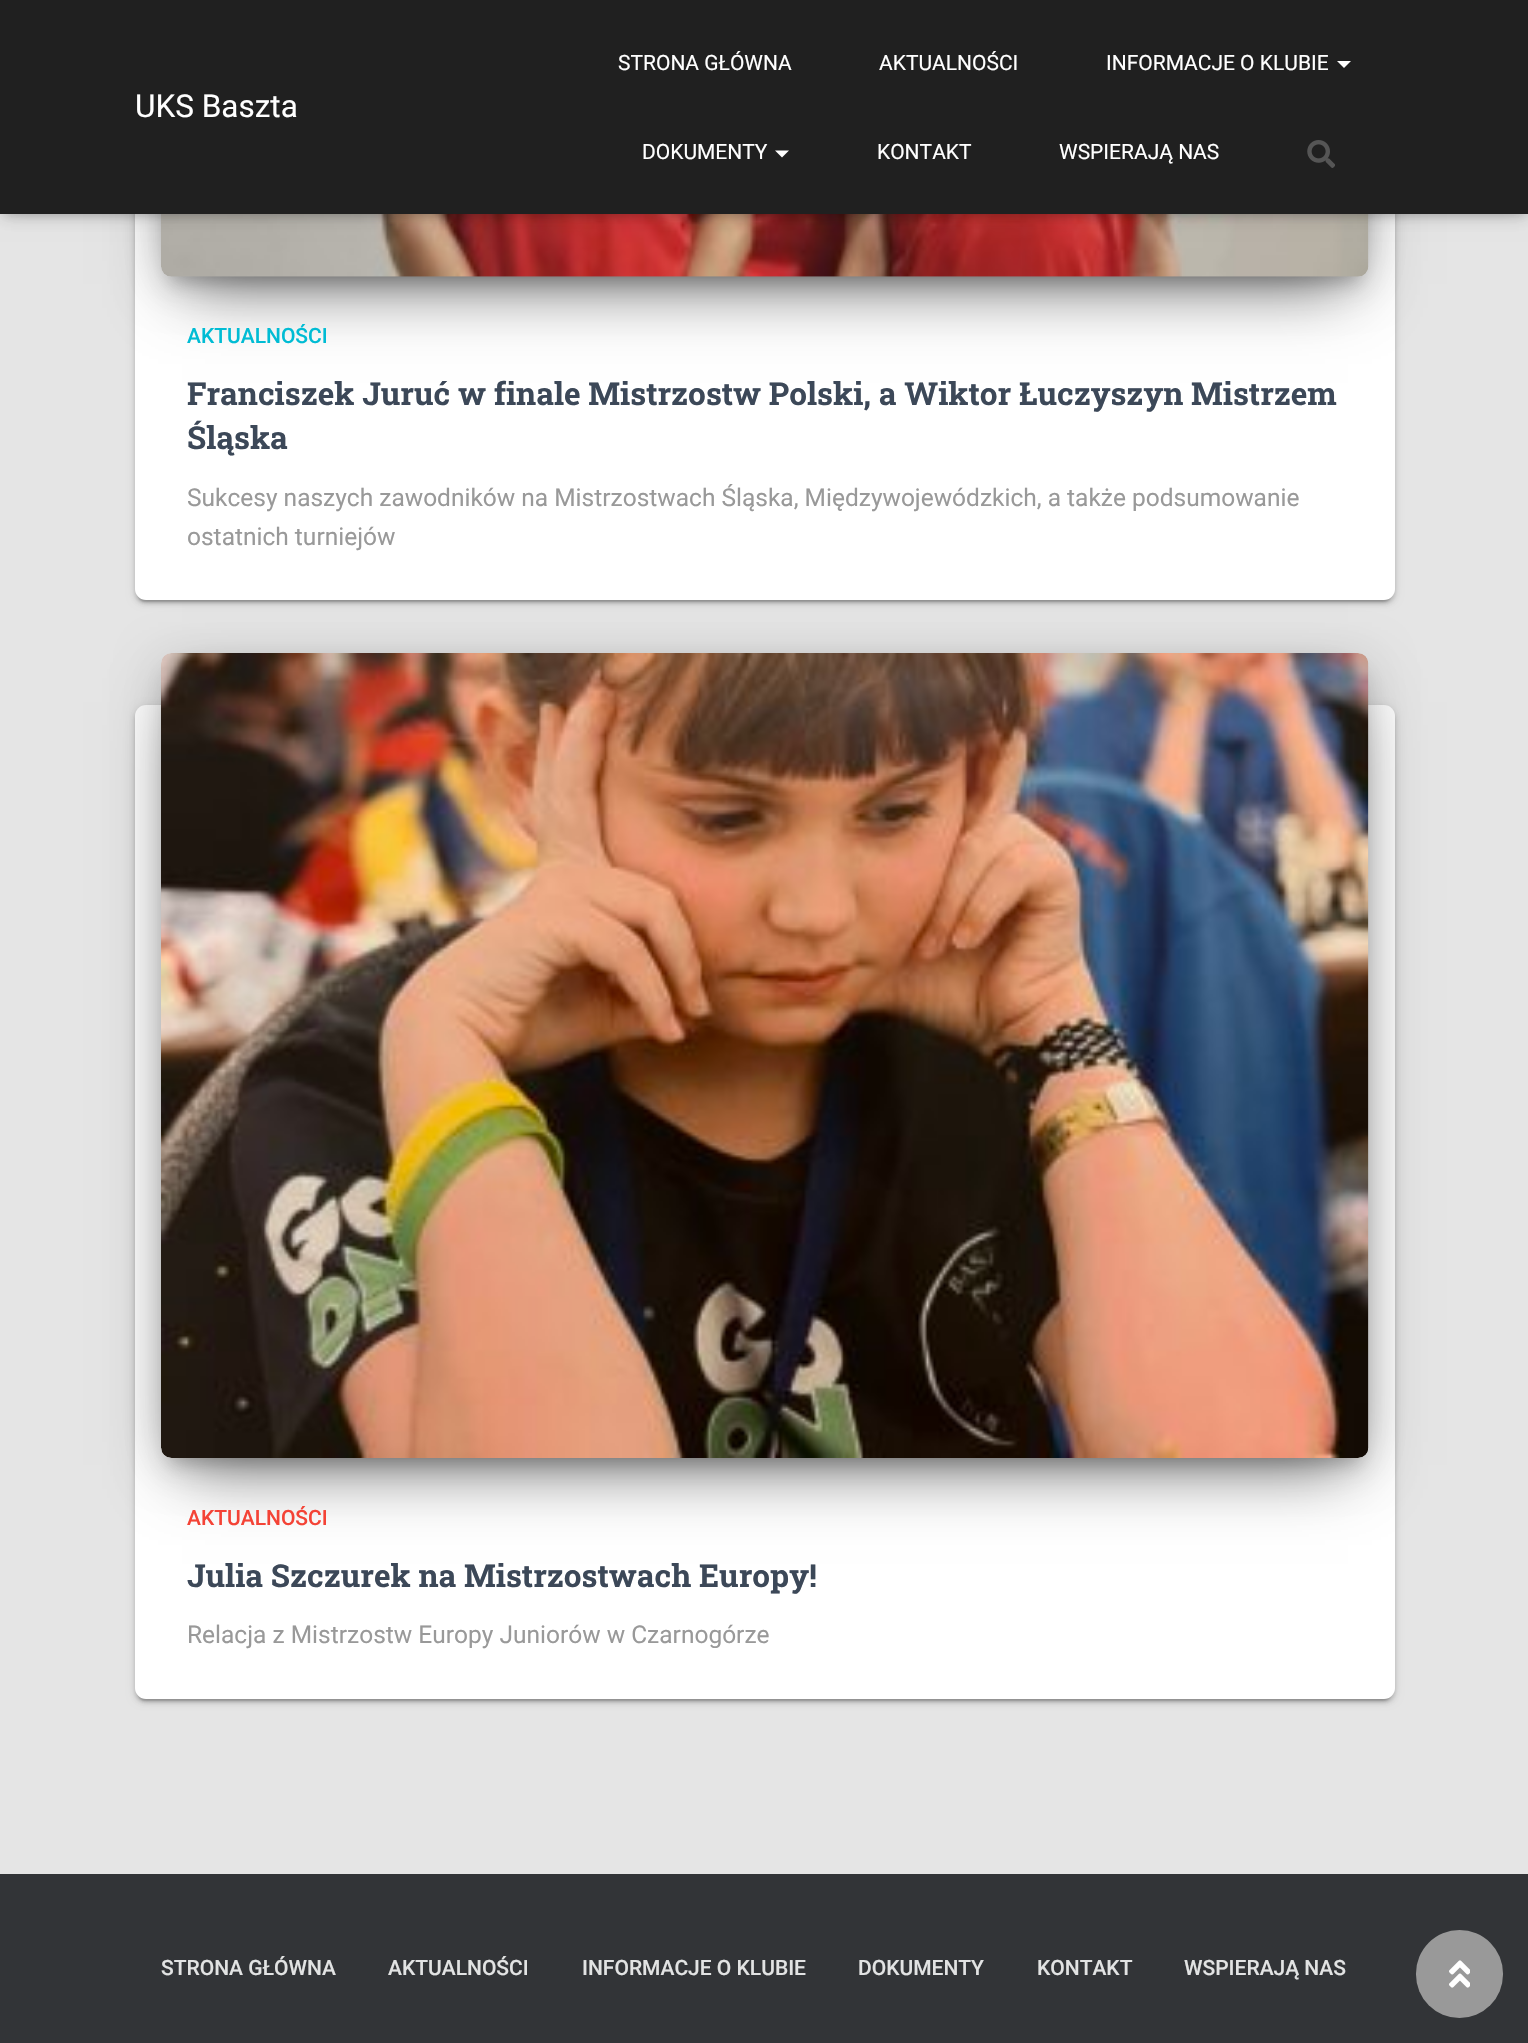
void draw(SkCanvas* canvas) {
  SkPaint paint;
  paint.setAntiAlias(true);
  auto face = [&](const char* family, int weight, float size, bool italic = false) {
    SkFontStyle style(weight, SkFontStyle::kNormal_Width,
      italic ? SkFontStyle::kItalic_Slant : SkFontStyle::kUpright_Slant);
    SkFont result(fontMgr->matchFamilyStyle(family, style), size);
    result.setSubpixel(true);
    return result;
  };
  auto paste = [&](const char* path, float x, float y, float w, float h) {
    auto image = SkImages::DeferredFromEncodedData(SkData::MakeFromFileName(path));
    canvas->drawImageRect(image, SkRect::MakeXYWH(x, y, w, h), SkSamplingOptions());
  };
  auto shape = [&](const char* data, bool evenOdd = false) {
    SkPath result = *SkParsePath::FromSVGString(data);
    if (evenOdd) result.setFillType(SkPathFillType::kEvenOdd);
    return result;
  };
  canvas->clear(0xffe5e5e5);
  paint.setColor(0x1f000000);
  paint.setMaskFilter(SkMaskFilter::MakeBlur(kNormal_SkBlurStyle, 4.5f));
  canvas->drawRoundRect(SkRect::MakeXYWH(135, -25, 1260, 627), 11, 11, paint);
  paint.setMaskFilter(nullptr);
  paint.setColor(0x33000000);
  paint.setMaskFilter(SkMaskFilter::MakeBlur(kNormal_SkBlurStyle, 1));
  canvas->drawRoundRect(SkRect::MakeXYWH(138, -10, 1253, 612), 7, 7, paint);
  paint.setMaskFilter(nullptr);
  paint.setColor(0x24000000);
  paint.setMaskFilter(SkMaskFilter::MakeBlur(kNormal_SkBlurStyle, 2));
  canvas->drawRoundRect(SkRect::MakeXYWH(135, -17, 1260, 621), 11, 11, paint);
  paint.setMaskFilter(nullptr);
  paint.setColor(0xffffffff);
  canvas->drawRoundRect(SkRect::MakeXYWH(135, -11, 1260, 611), 11, 11, paint);
  paint.setColor(0x33000000);
  paint.setMaskFilter(SkMaskFilter::MakeBlur(kNormal_SkBlurStyle, 9));
  canvas->drawRoundRect(SkRect::MakeXYWH(170, -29, 1190, 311), 2, 2, paint);
  paint.setMaskFilter(nullptr);
  paint.setColor(0x1f000000);
  paint.setMaskFilter(SkMaskFilter::MakeBlur(kNormal_SkBlurStyle, 22));
  canvas->drawRoundRect(SkRect::MakeXYWH(161, -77, 1208, 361), 11, 11, paint);
  paint.setMaskFilter(nullptr);
  paint.setColor(0x8f000000);
  paint.setMaskFilter(SkMaskFilter::MakeBlur(kNormal_SkBlurStyle, 33));
  canvas->drawRect(SkRect::MakeXYWH(182, -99, 1166, 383), paint);
  paint.setMaskFilter(nullptr);
  paste("img/2.png", 161, 214, 1208, 63);
  paint.setColor(0x1a000000);
  paint.setMaskFilter(SkMaskFilter::MakeBlur(kNormal_SkBlurStyle, 4.5f));
  canvas->drawRect(SkRect::MakeXYWH(4, 11, 1522, 206), paint);
  paint.setMaskFilter(nullptr);
  paint.setColor(0x1f000000);
  paint.setMaskFilter(SkMaskFilter::MakeBlur(kNormal_SkBlurStyle, 9));
  canvas->drawRect(SkRect::MakeXYWH(0, 2, 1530, 213), paint);
  paint.setMaskFilter(nullptr);
  paint.setColor(0x6b000000);
  paint.setMaskFilter(SkMaskFilter::MakeBlur(kNormal_SkBlurStyle, 9));
  canvas->drawRect(SkRect::MakeXYWH(11, 12, 1508, 193), paint);
  paint.setMaskFilter(nullptr);
  paint.setColor(0xff202020);
  canvas->drawRect(SkRect::MakeXYWH(0, 0, 1528, 214), paint);
  paint.setColor(0xffffffff);
  canvas->drawPath(shape("M1337 61H1351L1344 68Z"), paint);
  canvas->drawPath(shape("M775 150.5H789L782 157.5Z"), paint);
  paste("img/1.png", 1307, 140, 28, 28);
  paint.setColor(0x1f000000);
  paint.setMaskFilter(SkMaskFilter::MakeBlur(kNormal_SkBlurStyle, 4.5f));
  canvas->drawRoundRect(SkRect::MakeXYWH(135, 707, 1260, 994), 11, 11, paint);
  paint.setMaskFilter(nullptr);
  paint.setColor(0x33000000);
  paint.setMaskFilter(SkMaskFilter::MakeBlur(kNormal_SkBlurStyle, 1));
  canvas->drawRoundRect(SkRect::MakeXYWH(138, 714, 1253, 987), 7, 7, paint);
  paint.setMaskFilter(nullptr);
  paint.setColor(0x24000000);
  paint.setMaskFilter(SkMaskFilter::MakeBlur(kNormal_SkBlurStyle, 2));
  canvas->drawRoundRect(SkRect::MakeXYWH(135, 709, 1260, 994), 11, 11, paint);
  paint.setMaskFilter(nullptr);
  paint.setColor(0xffffffff);
  canvas->drawRoundRect(SkRect::MakeXYWH(135, 705, 1260, 994), 11, 11, paint);
  paint.setColor(0x33000000);
  paint.setMaskFilter(SkMaskFilter::MakeBlur(kNormal_SkBlurStyle, 9));
  canvas->drawRoundRect(SkRect::MakeXYWH(170, 676, 1190, 787), 2, 2, paint);
  paint.setMaskFilter(nullptr);
  paint.setColor(0x1f000000);
  paint.setMaskFilter(SkMaskFilter::MakeBlur(kNormal_SkBlurStyle, 22));
  canvas->drawRoundRect(SkRect::MakeXYWH(161, 660, 1208, 805), 11, 11, paint);
  paint.setMaskFilter(nullptr);
  paint.setColor(0x8f000000);
  paint.setMaskFilter(SkMaskFilter::MakeBlur(kNormal_SkBlurStyle, 33));
  canvas->drawRect(SkRect::MakeXYWH(182, 702, 1166, 763), paint);
  paint.setMaskFilter(nullptr);
  paste("img/3.png", 161, 653, 1208, 805);
  paint.setColor(0xff323437);
  canvas->drawRect(SkRect::MakeXYWH(0, 1874, 1528, 169), paint);
  paint.setColor(0xff999999);
  canvas->drawRoundRect(SkRect::MakeXYWH(1416, 1930, 87, 88), 43.5f, 43.5f, paint);
  paste("img/4.png", 1449, 1960, 21, 28);
  auto f0 = face("Roboto", 400, 31.5f);
  paint.setColor(0xffffffff);
  canvas->drawString("UKS Baszta", 135, 117, f0, paint);
  auto f1 = face("Roboto", 400, 21);
  {
    const struct { const char* s; float x, y; } items[] = {
      {"STRONA GŁÓWNA", 618, 70},
      {"AKTUALNOŚCI", 879, 70},
      {"INFORMACJE O KLUBIE", 1106, 70},
      {"DOKUMENTY", 642, 159},
      {"KONTAKT", 877, 159},
      {"WSPIERAJĄ NAS", 1059, 159},
    };
    for (auto [s, x, y] : items) {
      canvas->drawString(s, x, y, f1, paint);
    }
  }
  auto f2 = face("Roboto", 500, 21);
  paint.setColor(0xff00bcd4);
  canvas->drawString("AKTUALNOŚCI", 187, 343, f2, paint);
  auto f3 = face("Roboto Slab", 700, 31.5f);
  paint.setColor(0xff3c4858);
  canvas->drawString("Franciszek Juruć w finale Mistrzostw Polski, a Wiktor Łuczyszyn Mistrzem", 187, 405, f3, paint);
  canvas->drawString("Śląska", 187, 449, f3, paint);
  auto f4 = face("Roboto", 400, 24.5f);
  paint.setColor(0xff999999);
  canvas->drawString("Sukcesy naszych zawodników na Mistrzostwach Śląska, Międzywojewódzkich, a także podsumowanie", 187, 506, f4, paint);
  canvas->drawString("ostatnich turniejów", 187, 545, f4, paint);
  paint.setColor(0xfff44336);
  canvas->drawString("AKTUALNOŚCI", 187, 1525, f2, paint);
  paint.setColor(0xff3c4858);
  canvas->drawString("Julia Szczurek na Mistrzostwach Europy!", 187, 1587, f3, paint);
  paint.setColor(0xff999999);
  canvas->drawString("Relacja z Mistrzostw Europy Juniorów w Czarnogórze", 187, 1643, f4, paint);
  paint.setColor(0xffe2e3e3);
  {
    const struct { const char* s; float x, y; } items[] = {
      {"STRONA GŁÓWNA", 161, 1975},
      {"AKTUALNOŚCI", 388, 1975},
      {"INFORMACJE O KLUBIE", 582, 1975},
      {"DOKUMENTY", 858, 1975},
      {"KONTAKT", 1037, 1975},
      {"WSPIERAJĄ NAS", 1184, 1975},
    };
    for (auto [s, x, y] : items) {
      canvas->drawString(s, x, y, f2, paint);
    }
  }
}
